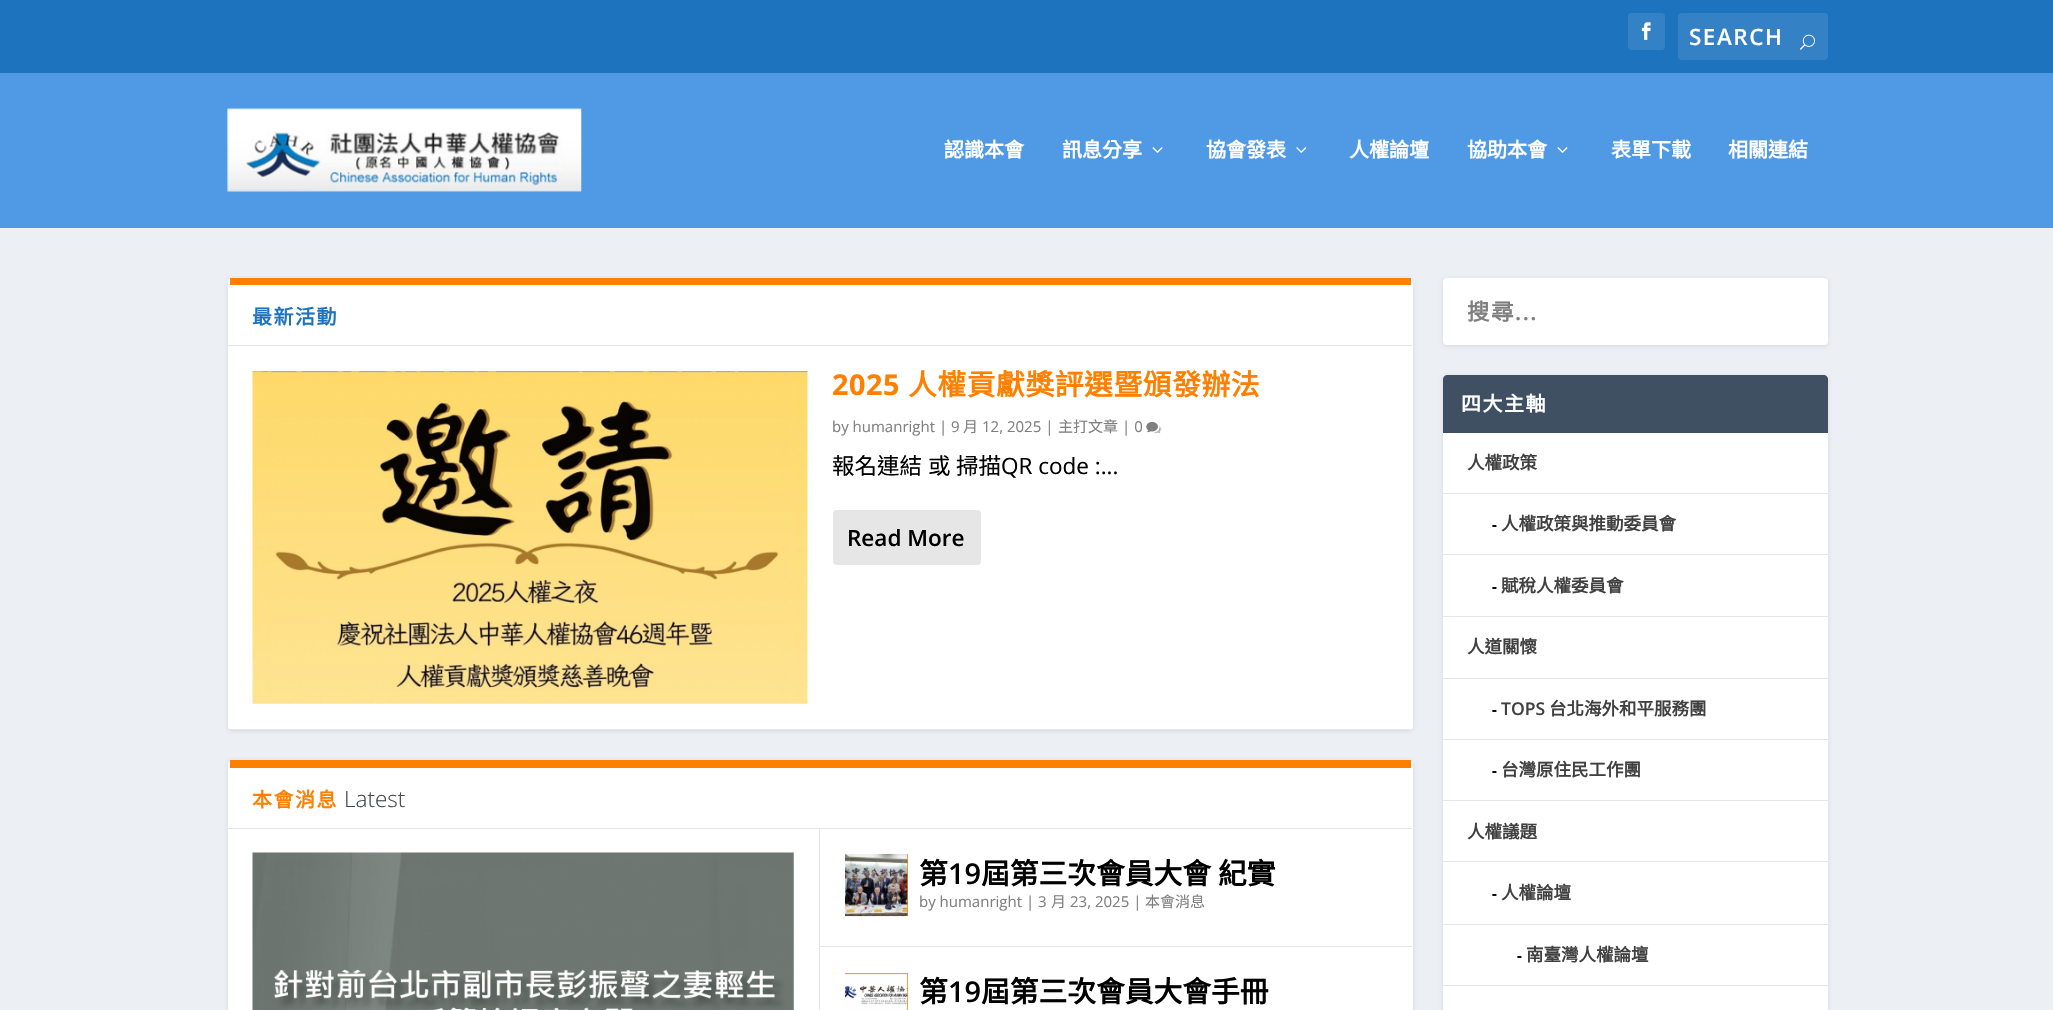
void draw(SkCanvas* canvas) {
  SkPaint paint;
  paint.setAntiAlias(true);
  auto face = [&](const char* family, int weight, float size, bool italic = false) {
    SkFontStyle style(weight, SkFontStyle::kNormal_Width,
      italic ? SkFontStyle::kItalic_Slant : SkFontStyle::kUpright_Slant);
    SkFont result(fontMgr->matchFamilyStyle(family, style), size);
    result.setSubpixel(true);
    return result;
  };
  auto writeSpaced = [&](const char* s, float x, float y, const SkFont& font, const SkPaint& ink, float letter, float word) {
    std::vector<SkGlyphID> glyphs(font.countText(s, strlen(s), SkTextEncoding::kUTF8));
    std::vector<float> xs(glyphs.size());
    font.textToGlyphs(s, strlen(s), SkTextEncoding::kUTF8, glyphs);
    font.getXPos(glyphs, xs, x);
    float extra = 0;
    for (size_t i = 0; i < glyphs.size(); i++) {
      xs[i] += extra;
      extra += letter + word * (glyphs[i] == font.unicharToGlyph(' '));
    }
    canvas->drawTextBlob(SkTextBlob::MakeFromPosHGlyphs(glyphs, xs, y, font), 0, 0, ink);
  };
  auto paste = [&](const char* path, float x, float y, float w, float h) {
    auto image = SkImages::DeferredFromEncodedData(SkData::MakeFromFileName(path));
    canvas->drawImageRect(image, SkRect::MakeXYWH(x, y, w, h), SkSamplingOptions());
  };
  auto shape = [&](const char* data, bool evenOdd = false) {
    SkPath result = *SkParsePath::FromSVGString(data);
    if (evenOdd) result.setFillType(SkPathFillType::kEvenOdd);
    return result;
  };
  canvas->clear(0xffecf0f5);
  paint.setColor(0xff1e73be);
  canvas->drawRect(SkRect::MakeXYWH(0, 0, 2053, 73), paint);
  paint.setColor(0xff3581c5);
  canvas->drawRoundRect(SkRect::MakeXYWH(1628, 13, 37, 37), 4, 4, paint);
  paste("img/1.png", 1641, 22, 10, 18);
  canvas->drawRoundRect(SkRect::MakeXYWH(1678, 13, 150, 47), 4, 4, paint);
  paste("img/2.png", 1800, 34, 15, 16);
  paint.setColor(0xff509ae5);
  canvas->drawRect(SkRect::MakeXYWH(0, 73, 2053, 155), paint);
  paste("img/3.png", 227, 108, 355, 84);
  paste("img/4.png", 1152, 147, 11, 6);
  paste("img/5.png", 1296, 147, 11, 6);
  paste("img/4.png", 1557, 147, 11, 6);
  paint.setColor(0x1a000000);
  paint.setMaskFilter(SkMaskFilter::MakeBlur(kNormal_SkBlurStyle, 2));
  canvas->drawRoundRect(SkRect::MakeXYWH(228, 279, 1185, 452), 4, 4, paint);
  paint.setMaskFilter(nullptr);
  paint.setColor(0xffffffff);
  canvas->drawRoundRect(SkRect::MakeXYWH(228, 278, 1185, 452), 4, 4, paint);
  paint.setColor(0xffff7f00);
  canvas->drawRect(SkRect::MakeXYWH(230, 278, 1181, 7), paint);
  paint.setColor(0xffe6e6e6);
  canvas->drawRect(SkRect::MakeXYWH(228, 345, 1184, 1), paint);
  paint.setColor(0x1a000000);
  canvas->drawPath(shape("M231 730H1409L1411 729H229Z"), paint);
  paste("img/6.png", 252, 371, 556, 333);
  paste("img/7.png", 1146, 422, 16, 12);
  paint.setColor(0xffe6e6e6);
  canvas->drawRoundRect(SkRect::MakeXYWH(833, 510, 148, 55), 4, 4, paint);
  paint.setColor(0x1a000000);
  paint.setMaskFilter(SkMaskFilter::MakeBlur(kNormal_SkBlurStyle, 2));
  canvas->drawRoundRect(SkRect::MakeXYWH(228, 761, 1185, 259), 4, 4, paint);
  paint.setMaskFilter(nullptr);
  paint.setColor(0xffffffff);
  canvas->drawRoundRect(SkRect::MakeXYWH(228, 760, 1185, 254), 4, 4, paint);
  {
    const struct { float x, y, w, h; SkColor color; } items[] = {
      {230, 760, 1181, 8, 0xffff7f00},
      {228, 828, 1184, 1, 0xffe6e6e6},
      {819, 829, 1, 181, 0xffe6e6e6},
    };
    for (auto [x, y, w, h, color] : items) {
      paint.setColor(color);
      canvas->drawRect(SkRect::MakeXYWH(x, y, w, h), paint);
    }
  }
  paste("img/8.png", 252, 852, 542, 158);
  canvas->drawRect(SkRect::MakeXYWH(820, 946, 592, 1), paint);
  paint.setColor(0xffff7f00);
  canvas->drawRect(SkRect::MakeXYWH(907, 854, 1, 62), paint);
  paste("img/9.png", 845, 853, 63, 64);
  canvas->drawRect(SkRect::MakeXYWH(845, 973, 63, 37), paint);
  paste("img/10.png", 845, 973, 63, 37);
  paint.setColor(0x1a000000);
  paint.setMaskFilter(SkMaskFilter::MakeBlur(kNormal_SkBlurStyle, 2));
  canvas->drawRoundRect(SkRect::MakeXYWH(1443, 279, 385, 67), 4, 4, paint);
  paint.setMaskFilter(nullptr);
  paint.setColor(0xffffffff);
  canvas->drawRoundRect(SkRect::MakeXYWH(1443, 278, 385, 67), 4, 4, paint);
  paint.setColor(0x1a000000);
  paint.setMaskFilter(SkMaskFilter::MakeBlur(kNormal_SkBlurStyle, 2));
  canvas->drawRoundRect(SkRect::MakeXYWH(1443, 376, 385, 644), 4, 4, paint);
  paint.setMaskFilter(nullptr);
  paint.setColor(0xffffffff);
  canvas->drawRoundRect(SkRect::MakeXYWH(1443, 375, 385, 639), 4, 4, paint);
  paint.setColor(0xff3e5062);
  canvas->drawPath(shape("M1447 375H1824C1826 375 1828 377 1828 379V433H1443V379C1443 377 1445 375 1447 375Z"), paint);
  {
    const struct { float x, y, w, h; SkColor color; } items[] = {
      {1443, 616, 385, 1, 0xffe6e6e6},
      {1443, 493, 385, 1, 0xffe6e6e6},
      {1443, 554, 385, 1, 0xffe6e6e6},
      {1443, 800, 385, 1, 0xffe6e6e6},
      {1443, 678, 385, 1, 0xffe6e6e6},
      {1443, 739, 385, 1, 0xffe6e6e6},
      {1443, 861, 385, 1, 0xffe6e6e6},
      {1443, 924, 385, 1, 0xffe6e6e6},
      {1443, 985, 385, 1, 0xffe6e6e6},
    };
    for (auto [x, y, w, h, color] : items) {
      paint.setColor(color);
      canvas->drawRect(SkRect::MakeXYWH(x, y, w, h), paint);
    }
  }
  auto f0 = face("Open Sans", 600, 22.5f);
  paint.setColor(0xffffffff);
  writeSpaced("SEARCH", 1689, 45, f0, paint, 1.5f, 0);
  auto f1 = face("Noto Sans CJK TC", 700, 20);
  {
    const struct { const char* s; float x, y; } items[] = {
      {"認識本會", 944, 157},
      {"訊息分享", 1062, 157},
      {"協會發表", 1206, 157},
      {"人權論壇", 1349, 157},
      {"協助本會", 1467, 157},
      {"表單下載", 1611, 157},
      {"相關連結", 1728, 157},
    };
    for (auto [s, x, y] : items) {
      canvas->drawString(s, x, y, f1, paint);
    }
  }
  paint.setColor(0xff1e73be);
  writeSpaced("最新活動", 252, 324, f1, paint, 1.5f, 0);
  auto f2 = face("Open Sans", 700, 28.75f);
  paint.setColor(0xffff7f00);
  writeSpaced("2025", 832, 395, f2, paint, 0.6f, 0);
  auto f3 = face("Noto Sans CJK TC", 700, 28.75f);
  writeSpaced("人權貢獻獎評選暨頒發辦法", 908, 395, f3, paint, 0.6f, 0);
  auto f4 = face("Open Sans", 400, 15);
  paint.setColor(0xff808080);
  canvas->drawString("by humanright | 9", 832, 432, f4, paint);
  auto f5 = face("Noto Sans CJK TC", 400, 15);
  canvas->drawString("月", 963, 432, f5, paint);
  canvas->drawString("12, 2025 |", 982, 432, f4, paint);
  canvas->drawString("主打文章", 1058, 432, f5, paint);
  canvas->drawString("| 0", 1122, 432, f4, paint);
  auto f6 = face("Noto Sans CJK TC", 400, 22.5f);
  paint.setColor(0xff000000);
  {
    const struct { const char* s; float x, y; } items[] = {
      {"報名連結", 832, 474},
      {"或", 928, 474},
      {"掃描", 956, 474},
    };
    for (auto [s, x, y] : items) {
      canvas->drawString(s, x, y, f6, paint);
    }
  }
  auto f7 = face("Open Sans", 400, 22.5f);
  canvas->drawString("QR code :...", 1001, 474, f7, paint);
  canvas->drawString("Read More", 847, 546, f0, paint);
  paint.setColor(0xffff7f00);
  writeSpaced("本會消息", 252, 807, f1, paint, 1.5f, 0);
  auto f8 = face("Open Sans", 300, 22.5f);
  paint.setColor(0xff444651);
  canvas->drawString("Latest", 344, 807, f8, paint);
  paint.setColor(0xff000000);
  canvas->drawString("第", 919, 884, f3, paint);
  auto f9 = face("Open Sans", 600, 28.75f);
  canvas->drawString("19", 948, 884, f9, paint);
  canvas->drawString("屆第三次會員大會", 981, 884, f3, paint);
  canvas->drawString("紀實", 1218, 884, f3, paint);
  paint.setColor(0xff808080);
  canvas->drawString("by humanright | 3", 919, 907, f4, paint);
  canvas->drawString("月", 1051, 907, f5, paint);
  canvas->drawString("23, 2025 |", 1070, 907, f4, paint);
  canvas->drawString("本會消息", 1145, 907, f5, paint);
  paint.setColor(0xff000000);
  canvas->drawString("第", 919, 1002, f3, paint);
  canvas->drawString("19", 948, 1002, f9, paint);
  canvas->drawString("屆第三次會員大會手冊", 981, 1002, f3, paint);
  auto f10 = face("Noto Sans CJK TC", 700, 22.5f);
  paint.setColor(0xff808080);
  writeSpaced("搜尋", 1467, 320, f10, paint, 1.5f, 0);
  writeSpaced("...", 1515, 320, f0, paint, 1.5f, 0);
  paint.setColor(0xffffffff);
  writeSpaced("四大主軸", 1461, 411, f1, paint, 1.5f, 0);
  auto f11 = face("Noto Sans CJK TC", 700, 17.5f);
  paint.setColor(0xff404040);
  canvas->drawString("人權政策", 1467, 469, f11, paint);
  auto f12 = face("Open Sans", 700, 15);
  paint.setColor(0xff000000);
  canvas->drawString("-", 1492, 530, f12, paint);
  paint.setColor(0xff404040);
  canvas->drawString("人權政策與推動委員會", 1501, 530, f11, paint);
  paint.setColor(0xff000000);
  canvas->drawString("-", 1492, 592, f12, paint);
  paint.setColor(0xff404040);
  canvas->drawString("賦稅人權委員會", 1501, 592, f11, paint);
  canvas->drawString("人道關懷", 1467, 653, f11, paint);
  paint.setColor(0xff000000);
  canvas->drawString("-", 1492, 715, f12, paint);
  auto f13 = face("Open Sans", 600, 17.5f);
  paint.setColor(0xff404040);
  canvas->drawString("TOPS", 1501, 715, f13, paint);
  canvas->drawString("台北海外和平服務團", 1549, 715, f11, paint);
  paint.setColor(0xff000000);
  canvas->drawString("-", 1492, 776, f12, paint);
  paint.setColor(0xff404040);
  canvas->drawString("台灣原住民工作團", 1501, 776, f11, paint);
  canvas->drawString("人權議題", 1467, 838, f11, paint);
  paint.setColor(0xff000000);
  canvas->drawString("-", 1492, 899, f12, paint);
  paint.setColor(0xff404040);
  canvas->drawString("人權論壇", 1501, 899, f11, paint);
  paint.setColor(0xff000000);
  canvas->drawString("-", 1517, 961, f12, paint);
  paint.setColor(0xff404040);
  canvas->drawString("南臺灣人權論壇", 1526, 961, f11, paint);
}
